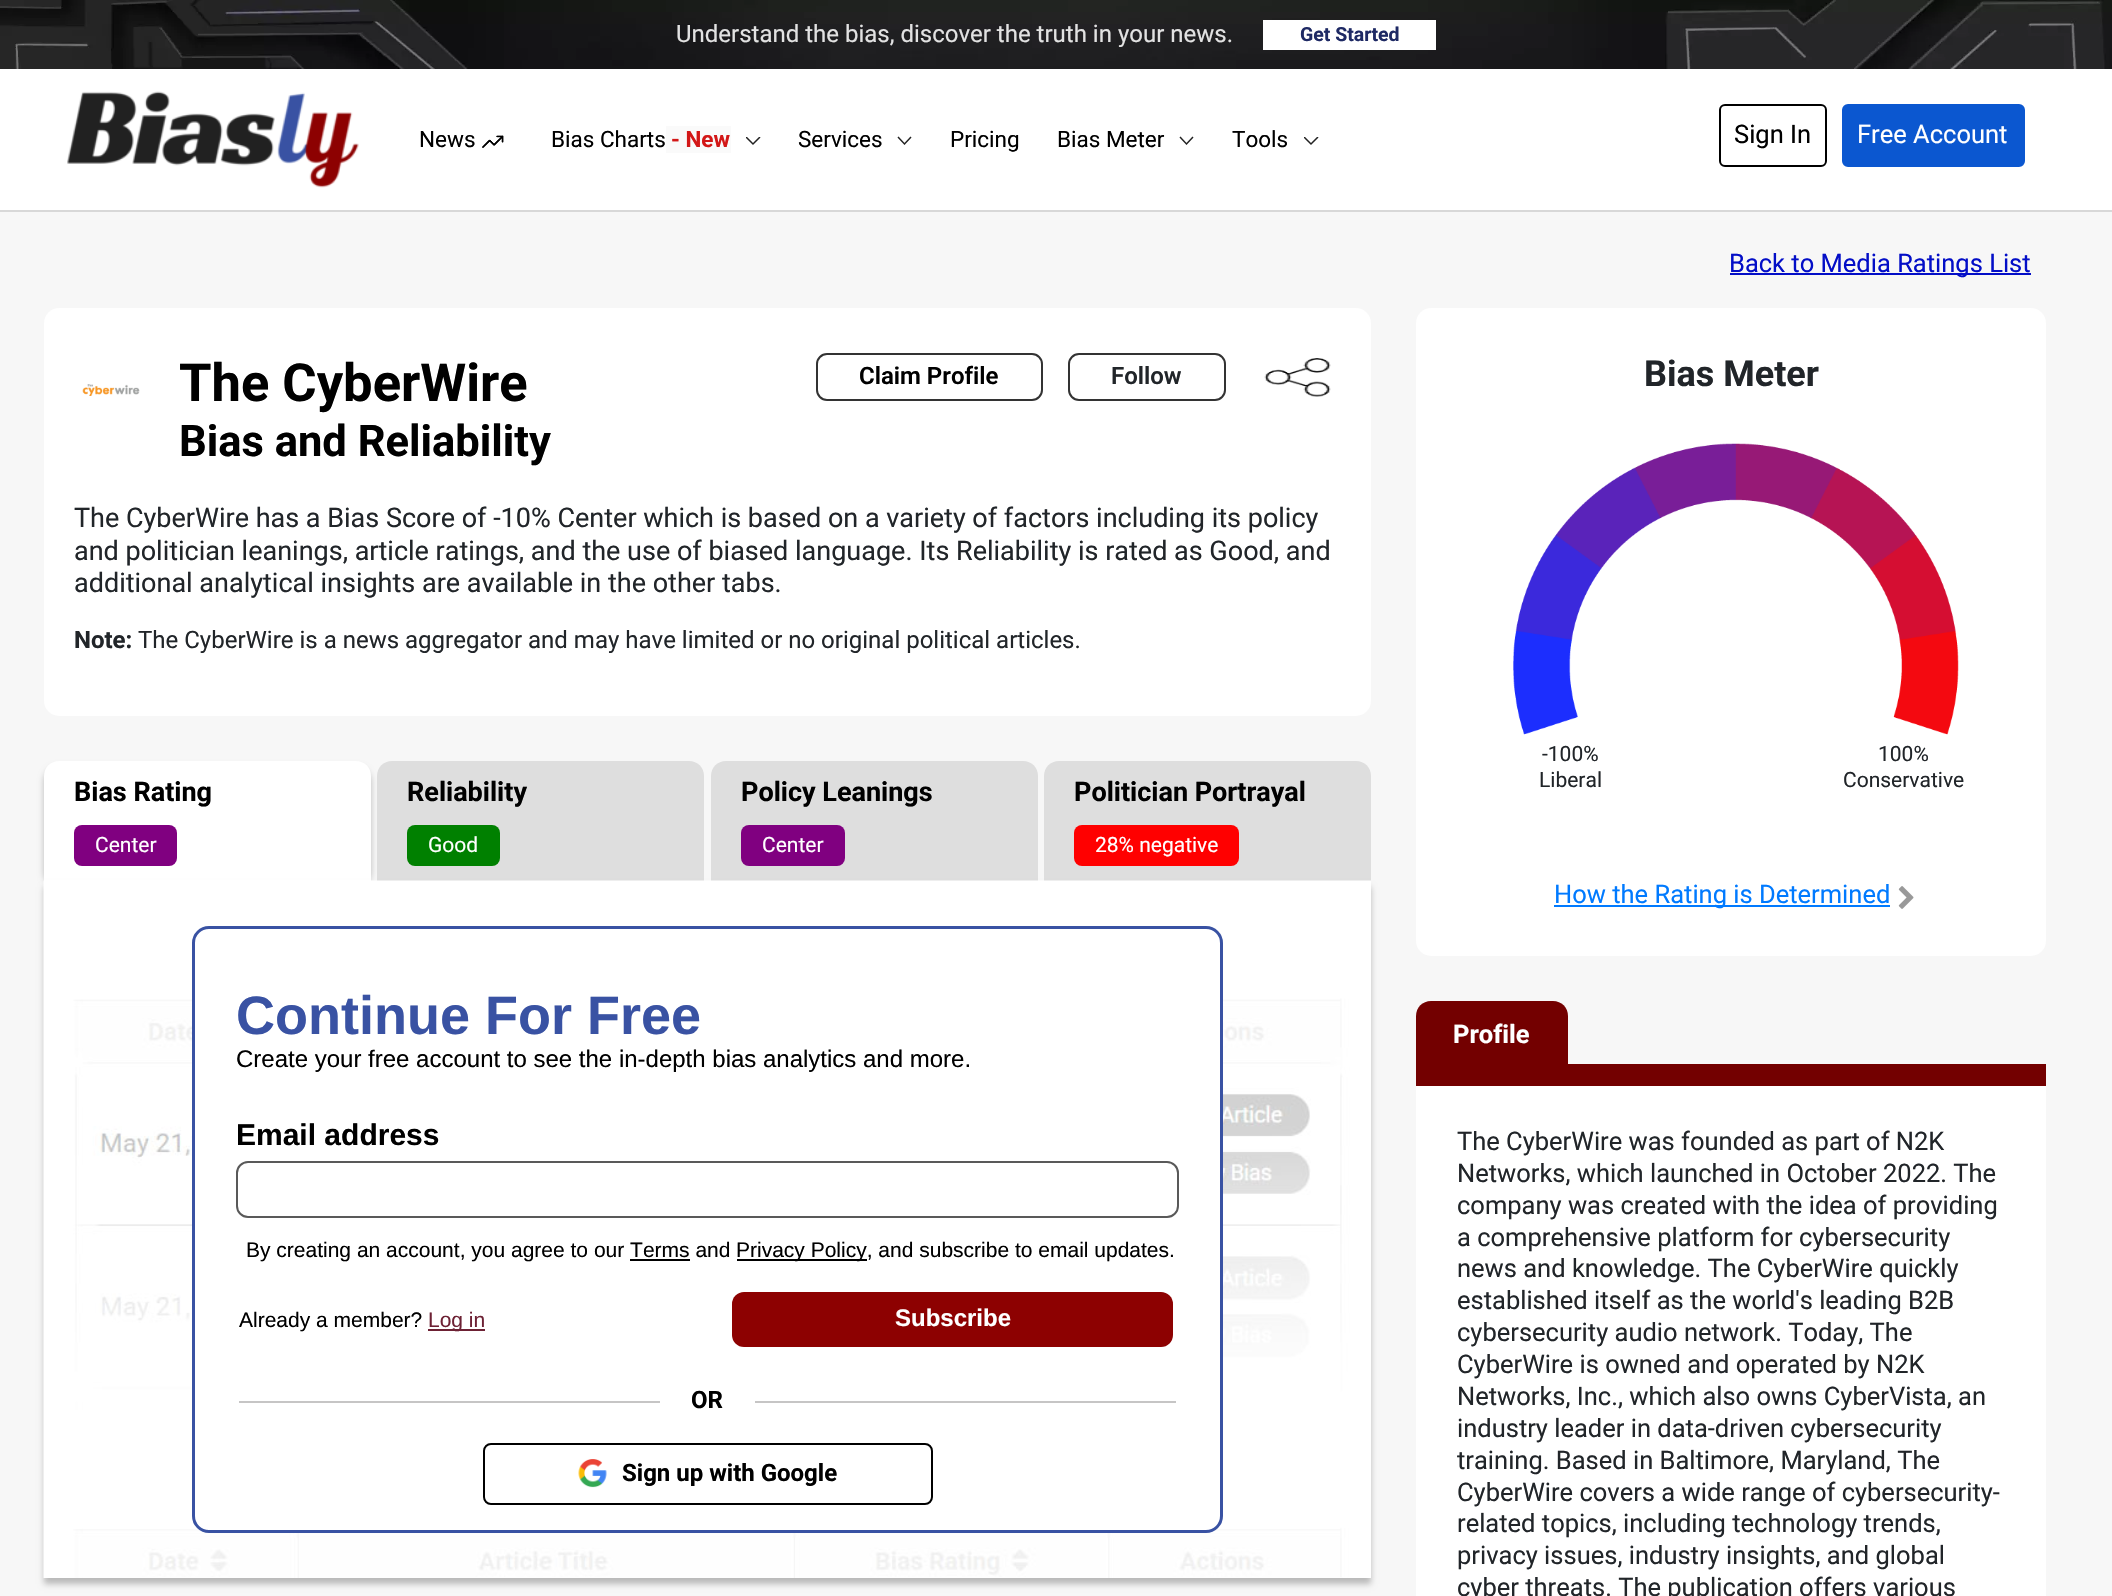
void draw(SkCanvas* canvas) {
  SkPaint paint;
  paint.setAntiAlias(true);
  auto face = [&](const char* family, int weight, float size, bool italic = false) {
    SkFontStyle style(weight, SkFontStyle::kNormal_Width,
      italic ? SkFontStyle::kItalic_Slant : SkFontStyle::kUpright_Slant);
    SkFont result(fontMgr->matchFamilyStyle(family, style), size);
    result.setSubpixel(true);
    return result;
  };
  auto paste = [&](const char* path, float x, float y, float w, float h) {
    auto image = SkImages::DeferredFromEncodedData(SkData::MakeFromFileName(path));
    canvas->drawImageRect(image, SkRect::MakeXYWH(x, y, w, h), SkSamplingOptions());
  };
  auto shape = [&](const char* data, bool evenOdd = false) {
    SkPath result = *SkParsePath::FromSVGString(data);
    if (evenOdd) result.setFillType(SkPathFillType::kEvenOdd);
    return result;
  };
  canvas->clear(0xfff7f7f7);
  paste("img/1.png", 0, 0, 2112, 69);
  {
    const struct { float x, y, w, h; SkColor color; } items[] = {
      {1263, 20, 173, 30, 0xffffffff},
      {0, 69, 2112, 141, 0xffffffff},
      {0, 210, 2112, 2, 0xffd8d8d8},
    };
    for (auto [x, y, w, h, color] : items) {
      paint.setColor(color);
      canvas->drawRect(SkRect::MakeXYWH(x, y, w, h), paint);
    }
  }
  paste("img/2.png", 67, 91, 292, 97);
  paste("img/3.png", 482, 135, 22, 13);
  paint.setColor(0xfffafafa);
  canvas->drawRect(SkRect::MakeXYWH(666, 126, 65, 27), paint);
  canvas->save();
  canvas->clipRect(SkRect::MakeXYWH(746, 137, 15, 9));
  paint.setStroke(true);
  paint.setStrokeWidth(1.5f);
  paint.setColor(0xff222222);
  canvas->drawPath(shape("M760 137L753 144L746 137"), paint);
  canvas->restore();
  canvas->drawPath(shape("M911 137L904.5 144L898 137"), paint);
  canvas->drawPath(shape("M1193 137L1186.5 144L1180 137"), paint);
  canvas->save();
  canvas->clipRect(SkRect::MakeXYWH(1304, 137, 15, 9));
  canvas->drawPath(shape("M1318 137L1311 144L1304 137"), paint);
  canvas->restore();
  paint.setStrokeWidth(2);
  paint.setColor(0xff000000);
  canvas->drawRoundRect(SkRect::MakeXYWH(1720, 105, 106, 61), 5, 5, paint);
  paint.setStroke(false);
  paint.setColor(0xff0b57d0);
  canvas->drawRoundRect(SkRect::MakeXYWH(1843, 105, 181, 61), 5, 5, paint);
  paint.setStroke(true);
  canvas->drawRoundRect(SkRect::MakeXYWH(1843, 105, 181, 61), 5, 5, paint);
  paint.setStroke(false);
  paint.setColor(0xff030ec7);
  canvas->drawRect(SkRect::MakeXYWH(1730, 273, 301, 2), paint);
  paint.setColor(0xffffffff);
  canvas->drawRoundRect(SkRect::MakeXYWH(44, 308, 1327, 408), 15, 15, paint);
  paste("img/4.png", 82, 384, 58, 12);
  paint.setStroke(true);
  paint.setColor(0xff333333);
  canvas->drawRoundRect(SkRect::MakeXYWH(817, 354, 225, 46), 10, 10, paint);
  canvas->drawRoundRect(SkRect::MakeXYWH(1069, 354, 156, 46), 10, 10, paint);
  paste("img/5.png", 1264, 358, 67, 39);
  paint.setStroke(false);
  paint.setColor(0x40000000);
  paint.setMaskFilter(SkMaskFilter::MakeBlur(kNormal_SkBlurStyle, 3));
  canvas->drawRoundRect(SkRect::MakeXYWH(44, 767, 327, 120), 15, 15, paint);
  paint.setMaskFilter(nullptr);
  paint.setColor(0xffffffff);
  canvas->drawPath(shape("M59 761H356C364.5 761 371 767.5 371 776V881H44V776C44 767.5 50.5 761 59 761Z"), paint);
  paint.setColor(0xff800080);
  canvas->drawRoundRect(SkRect::MakeXYWH(74, 825, 103, 41), 8, 8, paint);
  paint.setColor(0xffdedede);
  canvas->drawPath(shape("M392 761H689C697.5 761 704 767.5 704 776V881H377V776C377 767.5 383.5 761 392 761Z"), paint);
  paint.setColor(0xff008000);
  canvas->drawRoundRect(SkRect::MakeXYWH(407, 825, 93, 41), 8, 8, paint);
  paint.setColor(0xffdedede);
  canvas->drawPath(shape("M726 761H1023C1031.5 761 1038 767.5 1038 776V881H711V776C711 767.5 717.5 761 726 761Z"), paint);
  paint.setColor(0xff800080);
  canvas->drawRoundRect(SkRect::MakeXYWH(741, 825, 104, 41), 8, 8, paint);
  paint.setColor(0xffdedede);
  canvas->drawPath(shape("M1059 761H1356C1364.5 761 1371 767.5 1371 776V881H1044V776C1044 767.5 1050.5 761 1059 761Z"), paint);
  paint.setColor(0xffff0000);
  canvas->drawRoundRect(SkRect::MakeXYWH(1074, 825, 165, 41), 8, 8, paint);
  paint.setColor(0x40000000);
  paint.setMaskFilter(SkMaskFilter::MakeBlur(kNormal_SkBlurStyle, 3));
  canvas->drawRect(SkRect::MakeXYWH(44, 887, 1327, 697), paint);
  paint.setMaskFilter(nullptr);
  paste("img/6.png", 43, 880, 1328, 698);
  paint.setColor(0xffffffff);
  canvas->drawRoundRect(SkRect::MakeXYWH(193.5f, 927.5f, 1028, 604), 15.5f, 15.5f, paint);
  paint.setStroke(true);
  paint.setStrokeWidth(3);
  paint.setColor(0xff3952a3);
  canvas->drawRoundRect(SkRect::MakeXYWH(193.5f, 927.5f, 1028, 604), 15.5f, 15.5f, paint);
  paint.setStrokeWidth(2);
  paint.setColor(0xff595959);
  canvas->drawRoundRect(SkRect::MakeXYWH(237, 1162, 941, 55), 11, 11, paint);
  paint.setStroke(false);
  {
    const struct { float x, y, w, h; SkColor color; } items[] = {
      {737, 1259, 130, 2, 0xff000000},
      {630, 1259, 60, 2, 0xff000000},
      {428, 1329, 57, 2, 0xff6d2134},
    };
    for (auto [x, y, w, h, color] : items) {
      paint.setColor(color);
      canvas->drawRect(SkRect::MakeXYWH(x, y, w, h), paint);
    }
  }
  paint.setColor(0xff8d0101);
  canvas->drawRoundRect(SkRect::MakeXYWH(732, 1292, 441, 55), 12, 12, paint);
  paint.setColor(0xffc6c5c5);
  canvas->drawRect(SkRect::MakeXYWH(755, 1401, 421, 2), paint);
  canvas->drawRect(SkRect::MakeXYWH(239, 1401, 421, 2), paint);
  paint.setStroke(true);
  paint.setColor(0xff000000);
  canvas->drawRoundRect(SkRect::MakeXYWH(484, 1444, 448, 60), 7, 7, paint);
  paste("img/7.png", 578, 1459, 29, 29);
  paint.setStroke(false);
  paint.setColor(0xffffffff);
  canvas->drawRoundRect(SkRect::MakeXYWH(1416, 308, 630, 648), 15, 15, paint);
  paste("img/8.png", 1513, 443, 446, 292);
  paint.setColor(0xff007aff);
  canvas->drawRect(SkRect::MakeXYWH(1554, 905, 336, 2), paint);
  paste("img/9.png", 1898, 886, 16, 23);
  paint.setColor(0xff730000);
  canvas->drawRect(SkRect::MakeXYWH(1416, 1064, 630, 22), paint);
  canvas->drawPath(shape("M1431 1001H1553C1561.5 1001 1568 1007.5 1568 1016V1064H1416V1016C1416 1007.5 1422.5 1001 1431 1001Z"), paint);
  paint.setColor(0xffffffff);
  canvas->drawRect(SkRect::MakeXYWH(1416, 1086, 630, 510), paint);
  auto f0 = face("Roboto", 400, 24);
  paint.setColor(0xffe2e2e2);
  canvas->drawString("Understand the bias, discover the truth in your news.", 676, 42, f0, paint);
  auto f1 = face("Roboto", 700, 19.5f);
  paint.setColor(0xff1e2964);
  canvas->drawString("Get Started", 1300, 41, f1, paint);
  auto f2 = face("Roboto", 400, 22.5f);
  paint.setColor(0xff000000);
  canvas->drawString("News", 419, 147, f2, paint);
  canvas->drawString("Bias Charts", 551, 147, f2, paint);
  auto f3 = face("Roboto", 700, 22.5f);
  paint.setColor(0xffd31717);
  canvas->drawString("- New", 671, 147, f3, paint);
  paint.setColor(0xff000000);
  {
    const struct { const char* s; float x, y; } items[] = {
      {"Services", 798, 147},
      {"Pricing", 950, 147},
      {"Bias Meter", 1057, 147},
      {"Tools", 1232, 147},
    };
    for (auto [s, x, y] : items) {
      canvas->drawString(s, x, y, f2, paint);
    }
  }
  auto f4 = face("Roboto", 400, 25.5f);
  canvas->drawString("Sign In", 1734, 143, f4, paint);
  paint.setColor(0xffffffff);
  canvas->drawString("Free Account", 1857, 143, f4, paint);
  paint.setColor(0xff030ec7);
  canvas->drawString("Back to Media Ratings List", 1729, 272, f4, paint);
  auto f5 = face("Roboto", 700, 52.5f);
  paint.setColor(0xff000000);
  canvas->drawString("The CyberWire", 179, 401, f5, paint);
  auto f6 = face("Roboto", 700, 43.5f);
  canvas->drawString("Bias and Reliability", 179, 456, f6, paint);
  auto f7 = face("Roboto", 600, 24);
  canvas->drawString("Claim Profile", 859, 384, f7, paint);
  paint.setColor(0xff212529);
  canvas->drawString("Follow", 1111, 384, f7, paint);
  auto f8 = face("Roboto", 400, 27);
  {
    const struct { const char* s; float x, y; } items[] = {
      {"The CyberWire has a Bias Score of -10% Center which is based on a variety of factors including its policy", 74, 527},
      {"and politician leanings, article ratings, and the use of biased language. Its Reliability is rated as Good, and", 74, 560},
      {"additional analytical insights are available in the other tabs.", 74, 592},
    };
    for (auto [s, x, y] : items) {
      canvas->drawString(s, x, y, f8, paint);
    }
  }
  auto f9 = face("Roboto", 700, 24);
  canvas->drawString("Note:", 74, 648, f9, paint);
  canvas->drawString("The CyberWire is a news aggregator and may have limited or no original political articles.", 138, 648, f0, paint);
  auto f10 = face("Roboto", 700, 27);
  paint.setColor(0xff000000);
  canvas->drawString("Bias Rating", 74, 801, f10, paint);
  auto f11 = face("Roboto", 400, 21);
  paint.setColor(0xffffffff);
  canvas->drawString("Center", 95, 852, f11, paint);
  paint.setColor(0xff000000);
  canvas->drawString("Reliability", 407, 801, f10, paint);
  paint.setColor(0xffffffff);
  canvas->drawString("Good", 428, 852, f11, paint);
  paint.setColor(0xff000000);
  canvas->drawString("Policy Leanings", 741, 801, f10, paint);
  paint.setColor(0xffffffff);
  canvas->drawString("Center", 762, 852, f11, paint);
  paint.setColor(0xff000000);
  canvas->drawString("Politician Portrayal", 1074, 801, f10, paint);
  paint.setColor(0xffffffff);
  canvas->drawString("28% negative", 1095, 852, f11, paint);
  auto f12 = face("Liberation Sans", 700, 54);
  paint.setColor(0xff3952a3);
  canvas->drawString("Continue For Free", 236, 1034, f12, paint);
  auto f13 = face("Liberation Sans", 400, 24);
  paint.setColor(0xff000000);
  canvas->drawString("Create your free account to see the in-depth bias analytics and more.", 236, 1067, f13, paint);
  auto f14 = face("Liberation Sans", 700, 30);
  canvas->drawString("Email address", 236, 1145, f14, paint);
  auto f15 = face("Liberation Sans", 400, 21);
  {
    const struct { const char* s; float x, y; } items[] = {
      {"By creating an account, you agree to our Terms and", 246, 1257},
      {"Privacy Policy, and subscribe to email updates.", 736, 1257},
      {"Already a member?", 239, 1327},
    };
    for (auto [s, x, y] : items) {
      canvas->drawString(s, x, y, f15, paint);
    }
  }
  paint.setColor(0xff6d2134);
  canvas->drawString("Log in", 428, 1327, f15, paint);
  auto f16 = face("Liberation Sans", 700, 24);
  paint.setColor(0xffffffff);
  canvas->drawString("Subscribe", 895, 1326, f16, paint);
  paint.setColor(0xff000000);
  canvas->drawString("OR", 691, 1408, f9, paint);
  canvas->drawString("Sign up with Google", 622, 1481, f9, paint);
  auto f17 = face("Roboto", 700, 36);
  paint.setColor(0xff212529);
  canvas->drawString("Bias Meter", 1644, 386, f17, paint);
  {
    const struct { const char* s; float x, y; } items[] = {
      {"-100%", 1542, 761},
      {"Liberal", 1539, 787},
      {"100%", 1878, 761},
      {"Conservative", 1843, 787},
    };
    for (auto [s, x, y] : items) {
      canvas->drawString(s, x, y, f11, paint);
    }
  }
  paint.setColor(0xff007aff);
  canvas->drawString("How the Rating is Determined", 1554, 903, f4, paint);
  auto f18 = face("Roboto", 700, 25.5f);
  paint.setColor(0xffffffff);
  canvas->drawString("Profile", 1453, 1043, f18, paint);
  paint.setColor(0xff212529);
  {
    const struct { const char* s; float x, y; } items[] = {
      {"The CyberWire was founded as part of N2K", 1457, 1150},
      {"Networks, which launched in October 2022. The", 1457, 1182},
      {"company was created with the idea of providing", 1457, 1214},
      {"a comprehensive platform for cybersecurity", 1457, 1246},
      {"news and knowledge. The CyberWire quickly", 1457, 1277},
      {"established itself as the world's leading B2B", 1457, 1309},
      {"cybersecurity audio network. Today, The", 1457, 1341},
      {"CyberWire is owned and operated by N2K", 1457, 1373},
      {"Networks, Inc., which also owns CyberVista, an", 1457, 1405},
      {"industry leader in data-driven cybersecurity", 1457, 1437},
      {"training. Based in Baltimore, Maryland, The", 1457, 1469},
      {"CyberWire covers a wide range of cybersecurity-", 1457, 1501},
      {"related topics, including technology trends,", 1457, 1532},
      {"privacy issues, industry insights, and global", 1457, 1564},
      {"cyber threats. The publication offers various", 1457, 1596},
    };
    for (auto [s, x, y] : items) {
      canvas->drawString(s, x, y, f4, paint);
    }
  }
}
